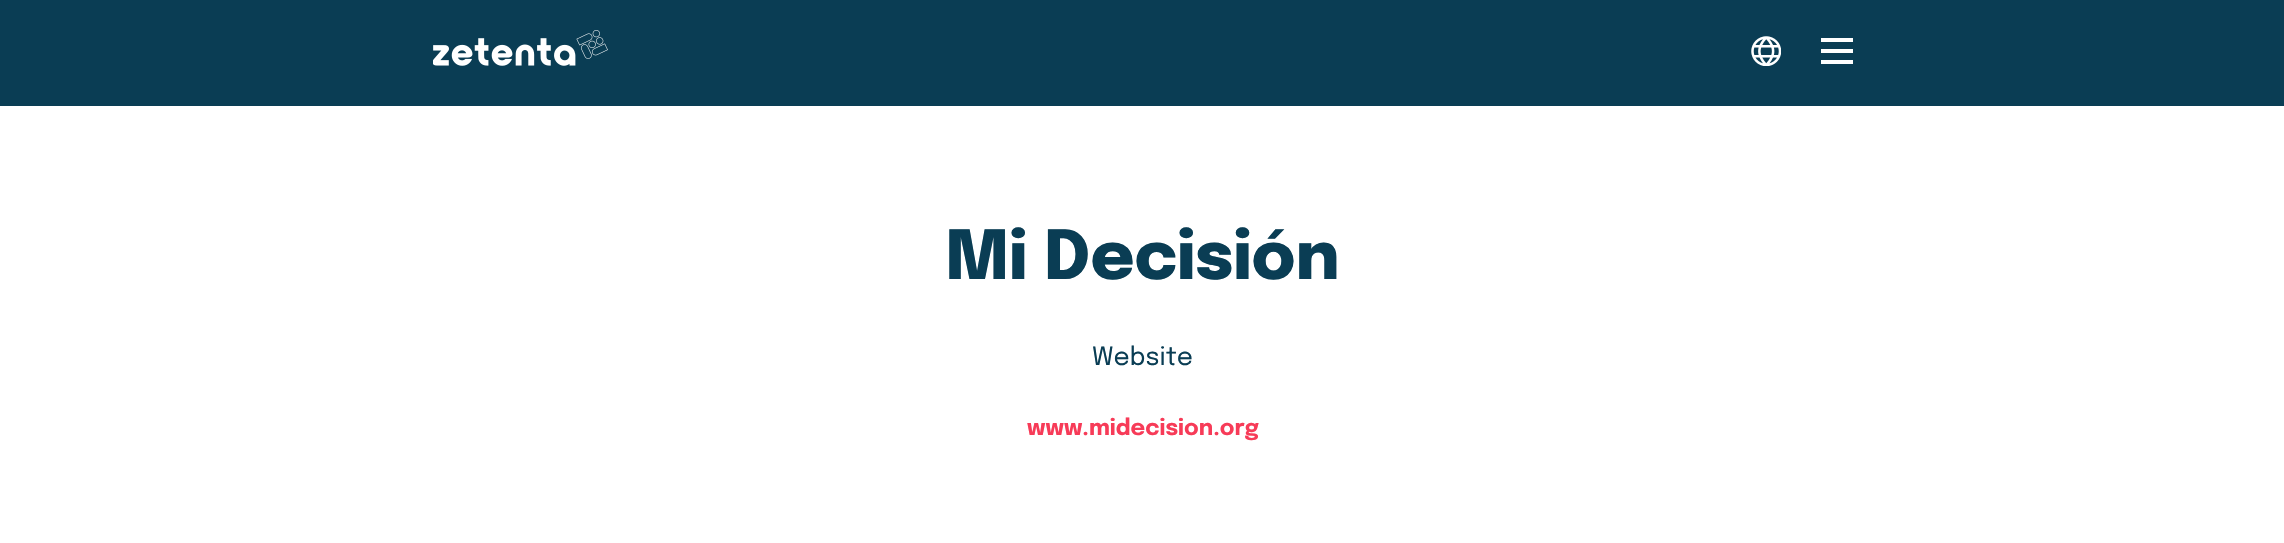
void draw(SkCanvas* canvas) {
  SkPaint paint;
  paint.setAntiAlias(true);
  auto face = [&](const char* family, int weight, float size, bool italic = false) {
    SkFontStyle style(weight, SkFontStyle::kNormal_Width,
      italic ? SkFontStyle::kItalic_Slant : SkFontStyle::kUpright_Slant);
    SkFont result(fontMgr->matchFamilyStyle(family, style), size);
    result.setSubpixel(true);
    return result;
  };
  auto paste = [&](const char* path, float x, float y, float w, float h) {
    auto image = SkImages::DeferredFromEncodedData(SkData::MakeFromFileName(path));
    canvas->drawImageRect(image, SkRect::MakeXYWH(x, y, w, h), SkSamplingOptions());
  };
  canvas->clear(0xffffffff);
  paint.setColor(0xff0a3d54);
  canvas->drawRect(SkRect::MakeXYWH(0, 0, 2284, 106), paint);
  paste("img/1.png", 433, 30, 175, 36);
  paste("img/2.png", 1751, 36, 30, 30);
  {
    const struct { float x, y, w, h; SkColor color; } items[] = {
      {1821, 38, 32, 4, 0xffffffff},
      {1821, 49, 32, 4, 0xffffffff},
      {1821, 60, 32, 4, 0xffffffff},
    };
    for (auto [x, y, w, h, color] : items) {
      paint.setColor(color);
      canvas->drawRect(SkRect::MakeXYWH(x, y, w, h), paint);
    }
  }
  auto f0 = face("Epilogue", 800, 67.5f);
  paint.setColor(0xff0a3d54);
  canvas->drawString("Mi Decisión", 945, 279, f0, paint);
  auto f1 = face("Epilogue", 400, 25);
  canvas->drawString("Website", 1092, 365, f1, paint);
  auto f2 = face("Epilogue", 700, 22.5f);
  paint.setColor(0xfff73b58);
  canvas->drawString("www.midecision.org", 1027, 435, f2, paint);
}
